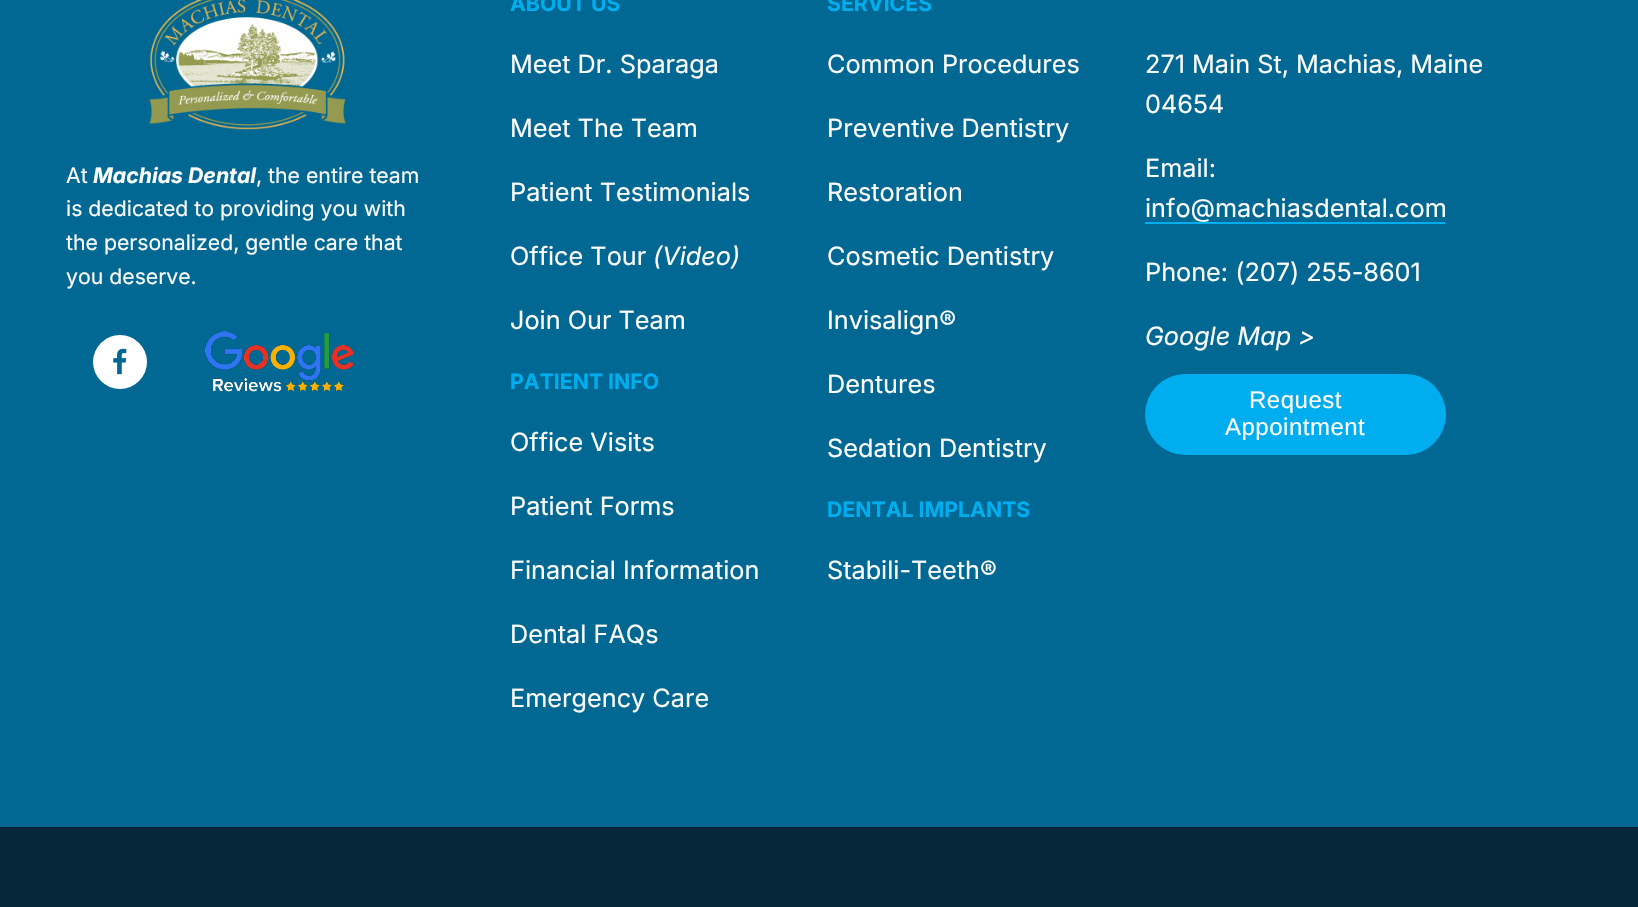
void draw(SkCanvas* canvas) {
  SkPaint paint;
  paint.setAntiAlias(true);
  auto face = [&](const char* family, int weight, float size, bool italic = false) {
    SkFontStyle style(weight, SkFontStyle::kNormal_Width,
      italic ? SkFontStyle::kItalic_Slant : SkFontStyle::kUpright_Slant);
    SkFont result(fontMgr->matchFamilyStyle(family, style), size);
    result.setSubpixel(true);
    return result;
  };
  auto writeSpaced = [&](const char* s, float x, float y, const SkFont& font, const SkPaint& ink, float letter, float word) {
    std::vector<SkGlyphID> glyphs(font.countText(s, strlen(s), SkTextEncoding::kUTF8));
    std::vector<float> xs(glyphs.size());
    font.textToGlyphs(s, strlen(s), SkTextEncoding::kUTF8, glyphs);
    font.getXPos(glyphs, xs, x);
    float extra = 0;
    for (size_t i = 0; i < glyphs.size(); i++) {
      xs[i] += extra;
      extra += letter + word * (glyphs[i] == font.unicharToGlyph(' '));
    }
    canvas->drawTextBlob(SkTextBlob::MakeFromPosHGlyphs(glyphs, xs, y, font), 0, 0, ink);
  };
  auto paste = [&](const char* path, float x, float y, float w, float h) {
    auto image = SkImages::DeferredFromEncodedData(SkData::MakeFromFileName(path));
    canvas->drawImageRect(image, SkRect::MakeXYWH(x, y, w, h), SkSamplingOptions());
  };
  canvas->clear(0xff006892);
  paste("img/1.png", 149, 0, 197, 130);
  paint.setColor(0xff00aeef);
  canvas->drawRect(SkRect::MakeXYWH(1145, 222, 300, 2), paint);
  paint.setColor(0xffffffff);
  canvas->drawCircle(120, 362, 27, paint);
  paste("img/2.png", 113, 348, 14, 27);
  paste("img/3.png", 205, 331, 150, 61);
  paint.setColor(0xff00aeef);
  canvas->drawRoundRect(SkRect::MakeXYWH(1145, 374, 301, 81), 40.5f, 40.5f, paint);
  paint.setColor(0xff062639);
  canvas->drawRect(SkRect::MakeXYWH(0, 827, 1638, 80), paint);
  auto f0 = face("Inter", 700, 21.25f);
  paint.setColor(0xff00aeef);
  canvas->drawString("ABOUT US", 510, 11, f0, paint);
  auto f1 = face("Inter", 400, 25.25f);
  paint.setColor(0xffffffff);
  {
    const struct { const char* s; float x, y; } items[] = {
      {"Meet Dr. Sparaga", 510, 73},
      {"Meet The Team", 510, 137},
      {"Patient Testimonials", 510, 201},
      {"Office Tour", 510, 265},
    };
    for (auto [s, x, y] : items) {
      canvas->drawString(s, x, y, f1, paint);
    }
  }
  auto f2 = face("Inter", 400, 25.25f, true);
  canvas->drawString("(Video)", 653, 265, f2, paint);
  canvas->drawString("Join Our Team", 510, 329, f1, paint);
  paint.setColor(0xff00aeef);
  canvas->drawString("PATIENT INFO", 510, 389, f0, paint);
  paint.setColor(0xffffffff);
  {
    const struct { const char* s; float x, y; } items[] = {
      {"Office Visits", 510, 451},
      {"Patient Forms", 510, 515},
      {"Financial Information", 510, 579},
      {"Dental FAQs", 510, 643},
      {"Emergency Care", 510, 707},
    };
    for (auto [s, x, y] : items) {
      canvas->drawString(s, x, y, f1, paint);
    }
  }
  paint.setColor(0xff00aeef);
  canvas->drawString("SERVICES", 827, 11, f0, paint);
  paint.setColor(0xffffffff);
  {
    const struct { const char* s; float x, y; } items[] = {
      {"Common Procedures", 827, 73},
      {"Preventive Dentistry", 827, 137},
      {"Restoration", 827, 201},
      {"Cosmetic Dentistry", 827, 265},
      {"Invisalign®", 827, 329},
      {"Dentures", 827, 393},
      {"Sedation Dentistry", 827, 457},
    };
    for (auto [s, x, y] : items) {
      canvas->drawString(s, x, y, f1, paint);
    }
  }
  paint.setColor(0xff00aeef);
  canvas->drawString("DENTAL IMPLANTS", 827, 517, f0, paint);
  paint.setColor(0xffffffff);
  {
    const struct { const char* s; float x, y; } items[] = {
      {"Stabili-Teeth®", 827, 579},
      {"271 Main St, Machias, Maine", 1145, 73},
      {"04654", 1145, 113},
      {"Email:", 1145, 177},
      {"info@machiasdental.com", 1145, 217},
      {"Phone: (207) 255-8601", 1145, 281},
    };
    for (auto [s, x, y] : items) {
      canvas->drawString(s, x, y, f1, paint);
    }
  }
  canvas->drawString("Google Map >", 1145, 345, f2, paint);
  auto f3 = face("Inter", 400, 21.25f);
  canvas->drawString("At", 66, 183, f3, paint);
  auto f4 = face("Inter", 700, 21.25f, true);
  canvas->drawString("Machias Dental", 93, 183, f4, paint);
  {
    const struct { const char* s; float x, y; } items[] = {
      {", the entire team", 256, 183},
      {"is dedicated to providing you with", 66, 216},
      {"the personalized, gentle care that", 66, 250},
      {"you deserve.", 66, 284},
    };
    for (auto [s, x, y] : items) {
      canvas->drawString(s, x, y, f3, paint);
    }
  }
  auto f5 = face("Liberation Sans", 400, 24);
  writeSpaced("Request", 1249, 408, f5, paint, 0.5f, 0);
  writeSpaced("Appointment", 1225, 435, f5, paint, 0.5f, 0);
}
